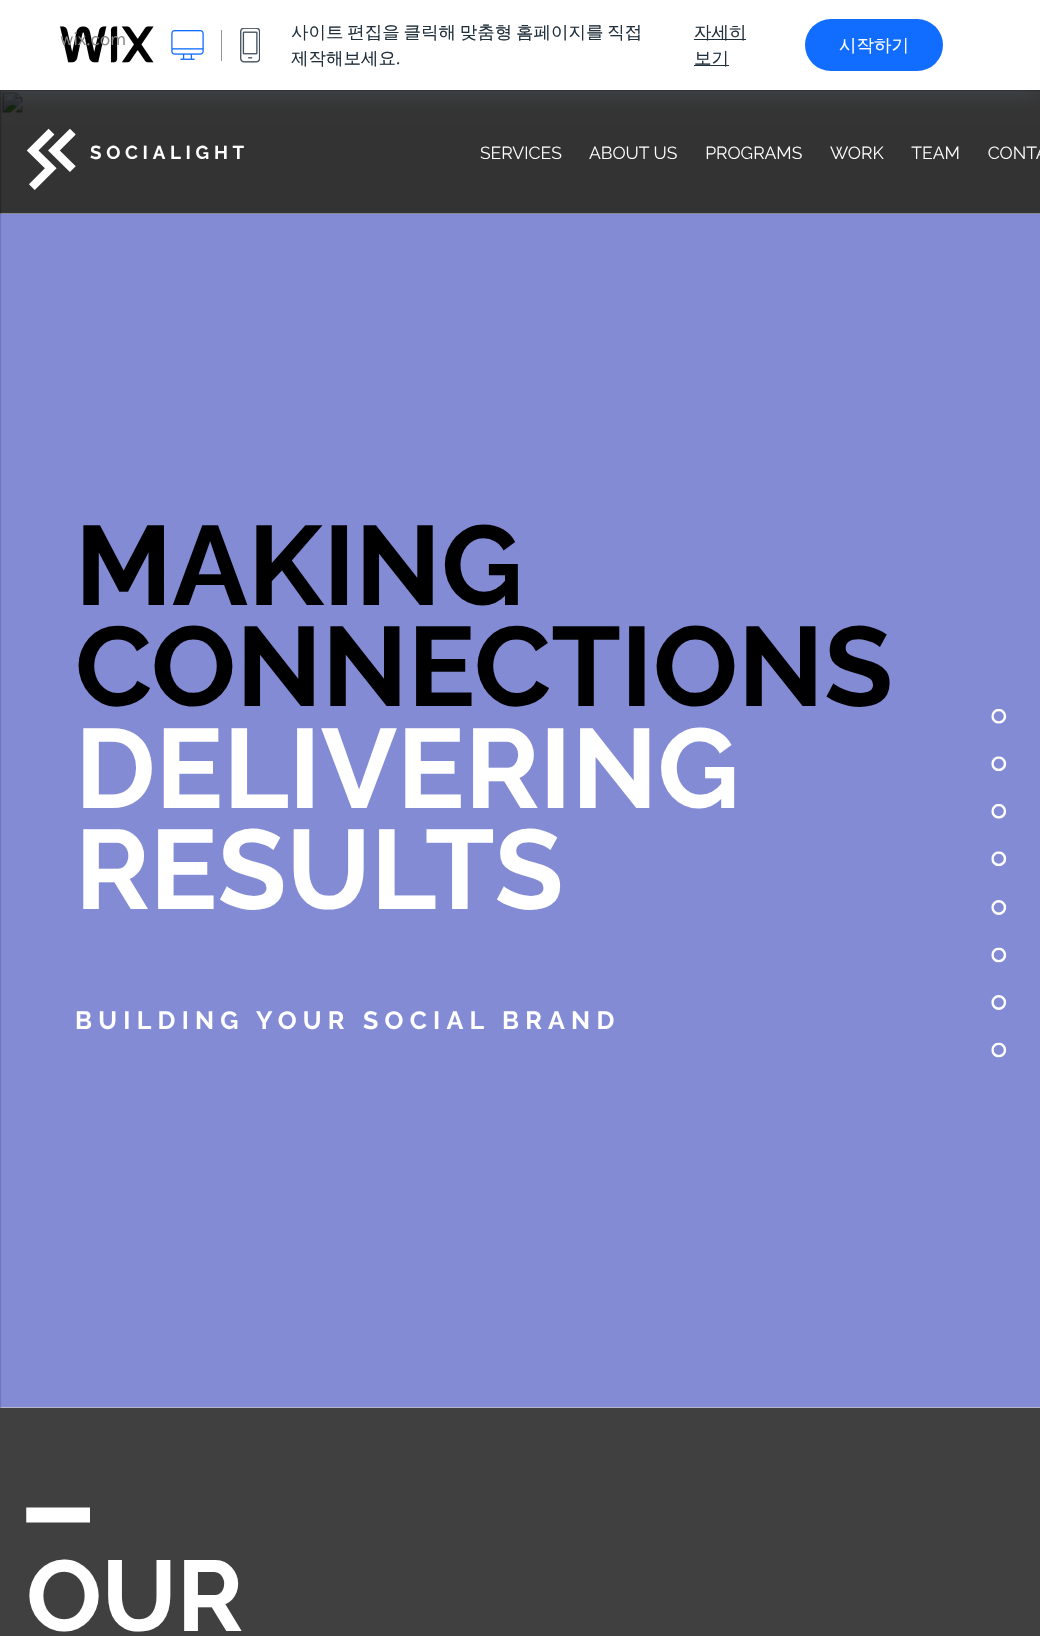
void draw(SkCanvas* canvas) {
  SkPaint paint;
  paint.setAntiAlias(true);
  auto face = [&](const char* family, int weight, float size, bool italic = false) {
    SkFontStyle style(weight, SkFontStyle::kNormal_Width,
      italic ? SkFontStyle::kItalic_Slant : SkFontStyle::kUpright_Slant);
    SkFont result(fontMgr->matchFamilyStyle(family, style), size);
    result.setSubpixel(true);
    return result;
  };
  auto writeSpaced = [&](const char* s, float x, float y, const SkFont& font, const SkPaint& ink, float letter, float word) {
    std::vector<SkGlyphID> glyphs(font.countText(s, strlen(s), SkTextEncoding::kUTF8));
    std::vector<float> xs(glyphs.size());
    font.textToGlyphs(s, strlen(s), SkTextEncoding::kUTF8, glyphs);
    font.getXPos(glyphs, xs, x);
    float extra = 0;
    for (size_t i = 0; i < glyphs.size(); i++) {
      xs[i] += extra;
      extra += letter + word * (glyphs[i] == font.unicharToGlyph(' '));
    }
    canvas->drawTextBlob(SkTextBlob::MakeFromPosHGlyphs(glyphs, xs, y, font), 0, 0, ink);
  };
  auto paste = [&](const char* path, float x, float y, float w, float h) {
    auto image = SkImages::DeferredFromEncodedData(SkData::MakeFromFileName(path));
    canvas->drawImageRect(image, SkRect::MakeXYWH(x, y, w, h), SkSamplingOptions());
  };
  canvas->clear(0xffffffff);
  paste("img/4.png", 0, 90, 1040, 1546);
  paint.setColor(0x3381a2b6);
  paint.setMaskFilter(SkMaskFilter::MakeBlur(kNormal_SkBlurStyle, 11));
  canvas->drawRect(SkRect::MakeXYWH(0, 3, 1040, 90), paint);
  paint.setMaskFilter(nullptr);
  paint.setColor(0xffffffff);
  canvas->drawRect(SkRect::MakeXYWH(0, 0, 1040, 90), paint);
  paste("img/1.png", 60, 26, 94, 37);
  paste("img/2.png", 171, 30, 33, 30);
  paint.setColor(0xff90989e);
  canvas->drawRect(SkRect::MakeXYWH(221, 30, 1, 31), paint);
  paste("img/3.png", 240, 28, 20, 35);
  paint.setColor(0xff20303c);
  canvas->drawRect(SkRect::MakeXYWH(694, 39, 52, 1), paint);
  canvas->drawRect(SkRect::MakeXYWH(694, 65, 35, 1), paint);
  paint.setColor(0xff116dff);
  canvas->drawRoundRect(SkRect::MakeXYWH(805, 19, 138, 52), 26, 26, paint);
  auto f0 = face("Wix Madefor Text", 400, 17.5f);
  paint.setColor(0xff868686);
  canvas->drawString("wix.com", 60, 45, f0, paint);
  auto f1 = face("WenQuanYi Zen Hei", 500, 17.5f);
  paint.setColor(0xff20303c);
  writeSpaced("사이트 편집을 클릭해 맞춤형 홈페이지를 직접", 291, 38, f1, paint, 0, -1.5f);
  canvas->drawString("제작해보세요", 291, 64, f1, paint);
  canvas->drawString(".", 396, 64, f0, paint);
  canvas->drawString("자세히", 694, 38, f1, paint);
  canvas->drawString("보기", 694, 64, f1, paint);
  paint.setColor(0xffffffff);
  canvas->drawString("시작하기", 839, 51, f1, paint);
}
